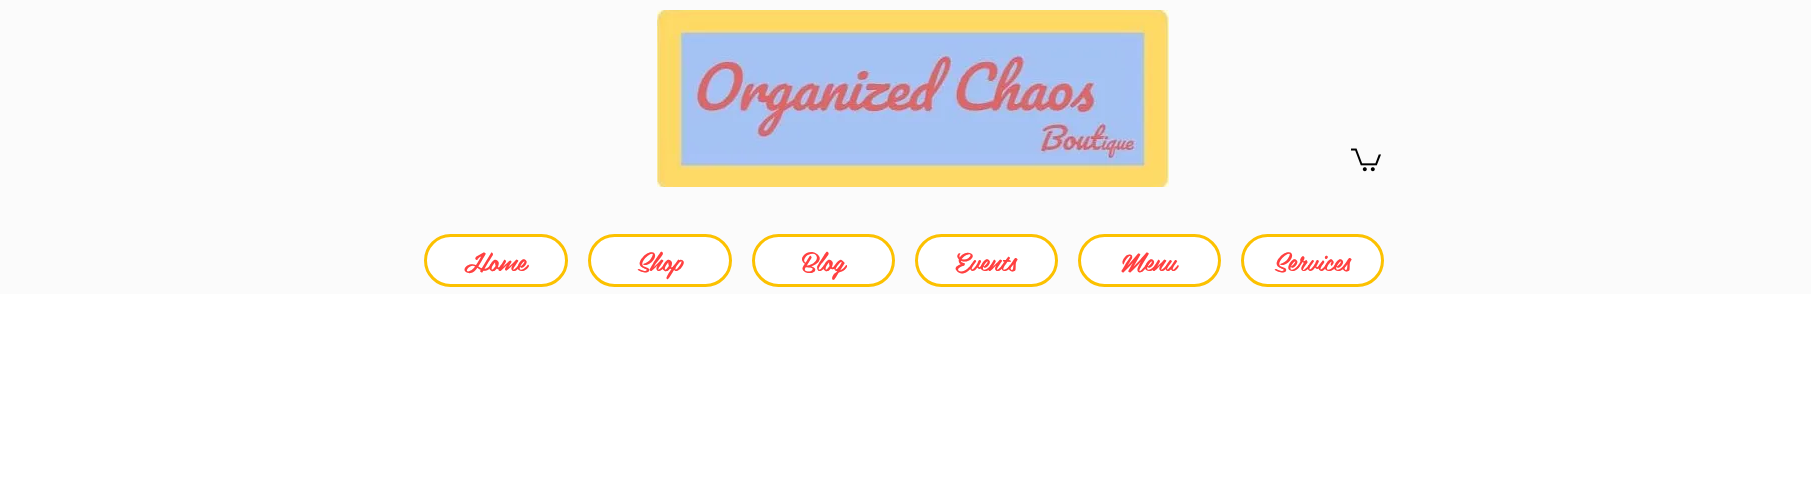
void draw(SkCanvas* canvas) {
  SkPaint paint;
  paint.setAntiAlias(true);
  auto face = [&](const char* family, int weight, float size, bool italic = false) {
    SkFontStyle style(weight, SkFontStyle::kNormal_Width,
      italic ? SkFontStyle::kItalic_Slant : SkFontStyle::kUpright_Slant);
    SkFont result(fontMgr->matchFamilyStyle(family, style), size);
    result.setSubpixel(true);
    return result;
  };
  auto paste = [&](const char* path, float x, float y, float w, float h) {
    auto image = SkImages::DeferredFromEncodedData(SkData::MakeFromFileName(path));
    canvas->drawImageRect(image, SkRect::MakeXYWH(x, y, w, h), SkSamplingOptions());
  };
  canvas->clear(0xffffffff);
  paint.setColor(0xfffbfbfb);
  canvas->drawRect(SkRect::MakeXYWH(0, 0, 1811, 294), paint);
  paste("img/1.png", 657, 10, 512, 177);
  paste("img/2.png", 1351, 148, 30, 24);
  paint.setColor(0xffffffff);
  canvas->drawRoundRect(SkRect::MakeXYWH(425.5f, 235.5f, 141, 50), 25, 25, paint);
  paint.setStroke(true);
  paint.setStrokeWidth(3);
  paint.setColor(0xfffcc100);
  canvas->drawRoundRect(SkRect::MakeXYWH(425.5f, 235.5f, 141, 50), 25, 25, paint);
  paint.setStroke(false);
  paint.setColor(0xffffffff);
  canvas->drawRoundRect(SkRect::MakeXYWH(589.5f, 235.5f, 141, 50), 25, 25, paint);
  paint.setStroke(true);
  paint.setColor(0xfffcc100);
  canvas->drawRoundRect(SkRect::MakeXYWH(589.5f, 235.5f, 141, 50), 25, 25, paint);
  paint.setStroke(false);
  paint.setColor(0xffffffff);
  canvas->drawRoundRect(SkRect::MakeXYWH(753.5f, 235.5f, 140, 50), 25, 25, paint);
  paint.setStroke(true);
  paint.setColor(0xfffcc100);
  canvas->drawRoundRect(SkRect::MakeXYWH(753.5f, 235.5f, 140, 50), 25, 25, paint);
  paint.setStroke(false);
  paint.setColor(0xffffffff);
  canvas->drawRoundRect(SkRect::MakeXYWH(916.5f, 235.5f, 140, 50), 25, 25, paint);
  paint.setStroke(true);
  paint.setColor(0xfffcc100);
  canvas->drawRoundRect(SkRect::MakeXYWH(916.5f, 235.5f, 140, 50), 25, 25, paint);
  paint.setStroke(false);
  paint.setColor(0xffffffff);
  canvas->drawRoundRect(SkRect::MakeXYWH(1079.5f, 235.5f, 140, 50), 25, 25, paint);
  paint.setStroke(true);
  paint.setColor(0xfffcc100);
  canvas->drawRoundRect(SkRect::MakeXYWH(1079.5f, 235.5f, 140, 50), 25, 25, paint);
  paint.setStroke(false);
  paint.setColor(0xffffffff);
  canvas->drawRoundRect(SkRect::MakeXYWH(1242.5f, 235.5f, 140, 50), 25, 25, paint);
  paint.setStroke(true);
  paint.setColor(0xfffcc100);
  canvas->drawRoundRect(SkRect::MakeXYWH(1242.5f, 235.5f, 140, 50), 25, 25, paint);
  auto f0 = face("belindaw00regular", 400, 26);
  paint.setStroke(false);
  paint.setColor(0xffff4040);
  {
    const struct { const char* s; float x, y; } items[] = {
      {"Home", 464, 271},
      {"Shop", 637, 271},
      {"Blog", 802, 271},
      {"Events", 955, 271},
      {"Menu", 1121, 271},
      {"Services", 1274, 271},
    };
    for (auto [s, x, y] : items) {
      canvas->drawString(s, x, y, f0, paint);
    }
  }
}
